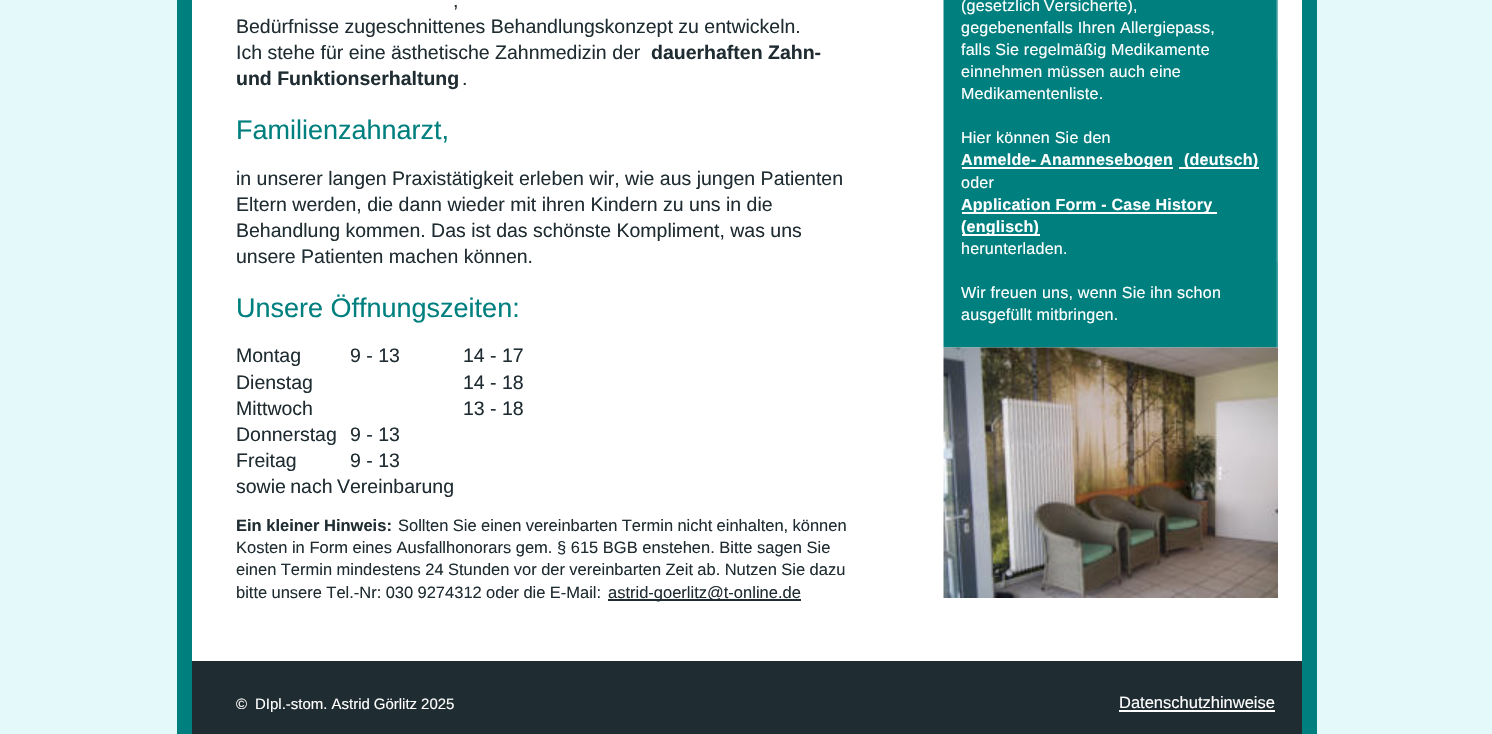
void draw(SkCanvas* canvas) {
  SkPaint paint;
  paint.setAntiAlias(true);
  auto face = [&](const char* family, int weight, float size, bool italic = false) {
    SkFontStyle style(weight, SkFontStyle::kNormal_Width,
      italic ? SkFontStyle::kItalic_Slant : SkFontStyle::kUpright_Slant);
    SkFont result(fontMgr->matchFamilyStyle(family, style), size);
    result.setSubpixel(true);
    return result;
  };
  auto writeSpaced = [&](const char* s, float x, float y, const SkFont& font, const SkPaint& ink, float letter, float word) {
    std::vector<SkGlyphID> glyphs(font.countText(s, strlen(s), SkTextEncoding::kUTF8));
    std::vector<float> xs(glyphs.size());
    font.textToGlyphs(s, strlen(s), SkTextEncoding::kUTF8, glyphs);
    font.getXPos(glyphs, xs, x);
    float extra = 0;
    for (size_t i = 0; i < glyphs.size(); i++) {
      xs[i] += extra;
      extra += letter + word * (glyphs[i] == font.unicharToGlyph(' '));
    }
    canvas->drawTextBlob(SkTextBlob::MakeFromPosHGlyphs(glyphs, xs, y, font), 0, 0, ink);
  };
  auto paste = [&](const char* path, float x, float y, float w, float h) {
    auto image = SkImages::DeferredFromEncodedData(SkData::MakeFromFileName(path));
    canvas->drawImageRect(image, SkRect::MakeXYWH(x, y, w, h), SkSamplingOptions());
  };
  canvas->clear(0xffe3f9fa);
  paint.setColor(0xff007f7f);
  canvas->drawRect(SkRect::MakeXYWH(177, 0, 1140, 734), paint);
  paint.setColor(0xffffffff);
  canvas->drawRect(SkRect::MakeXYWH(192, 0, 1110, 661), paint);
  paste("img/1.png", 943, 0, 335, 348);
  {
    const struct { float x, y, w, h; SkColor color; } items[] = {
      {608, 599, 193, 2, 0xff1f2c31},
      {962, 167, 211, 2, 0xffffffff},
      {1179, 167, 80, 2, 0xffffffff},
      {962, 212, 255, 2, 0xffffffff},
      {962, 234, 78, 2, 0xffffffff},
    };
    for (auto [x, y, w, h, color] : items) {
      paint.setColor(color);
      canvas->drawRect(SkRect::MakeXYWH(x, y, w, h), paint);
    }
  }
  paste("img/2.png", 943, 347, 335, 251);
  paint.setColor(0xff1f2c31);
  canvas->drawRect(SkRect::MakeXYWH(192, 661, 1110, 73), paint);
  paint.setColor(0xffffffff);
  canvas->drawRect(SkRect::MakeXYWH(1119, 710, 156, 2), paint);
  auto f0 = face("Liberation Sans", 400, 19.5f);
  paint.setColor(0xff1f2c31);
  {
    const struct { const char* s; float x, y; } items[] = {
      {",", 453, 7},
      {"Bedürfnisse zugeschnittenes Behandlungskonzept zu entwickeln.", 236, 33},
      {"Ich stehe für eine ästhetische Zahnmedizin der", 236, 59},
    };
    for (auto [s, x, y] : items) {
      canvas->drawString(s, x, y, f0, paint);
    }
  }
  auto f1 = face("Liberation Sans", 700, 19.5f);
  canvas->drawString("dauerhaften Zahn-", 651, 59, f1, paint);
  canvas->drawString("und Funktionserhaltung", 236, 85, f1, paint);
  canvas->drawString(".", 462, 85, f0, paint);
  auto f2 = face("Liberation Sans", 400, 27);
  paint.setColor(0xff007f7f);
  canvas->drawString("Familienzahnarzt,", 236, 139, f2, paint);
  paint.setColor(0xff1f2c31);
  {
    const struct { const char* s; float x, y; } items[] = {
      {"in unserer langen Praxistätigkeit erleben wir, wie aus jungen Patienten", 236, 185},
      {"Eltern werden, die dann wieder mit ihren Kindern zu uns in die", 236, 211},
      {"Behandlung kommen. Das ist das schönste Kompliment, was uns", 236, 237},
      {"unsere Patienten machen können.", 236, 263},
    };
    for (auto [s, x, y] : items) {
      canvas->drawString(s, x, y, f0, paint);
    }
  }
  paint.setColor(0xff007f7f);
  canvas->drawString("Unsere Öffnungszeiten:", 236, 317, f2, paint);
  paint.setColor(0xff1f2c31);
  {
    const struct { const char* s; float x, y; } items[] = {
      {"Montag", 236, 362},
      {"9 - 13", 350, 362},
      {"14 - 17", 463, 362},
      {"Dienstag", 236, 389},
      {"14 - 18", 463, 389},
      {"Mittwoch", 236, 415},
      {"13 - 18", 463, 415},
      {"Donnerstag", 236, 441},
      {"9 - 13", 350, 441},
      {"Freitag", 236, 467},
      {"9 - 13", 350, 467},
    };
    for (auto [s, x, y] : items) {
      canvas->drawString(s, x, y, f0, paint);
    }
  }
  writeSpaced("sowie nach Vereinbarung", 236, 493, f0, paint, 0, -1);
  auto f3 = face("Liberation Sans", 700, 16.5f);
  canvas->drawString("Ein kleiner Hinweis:", 236, 531, f3, paint);
  auto f4 = face("Liberation Sans", 400, 16.5f);
  writeSpaced("Sollten Sie einen vereinbarten Termin nicht einhalten, können", 398, 531, f4, paint, 0, -0.25f);
  canvas->drawString("Kosten in Form eines Ausfallhonorars gem. § 615 BGB enstehen. Bitte sagen Sie", 236, 553, f4, paint);
  writeSpaced("einen Termin mindestens 24 Stunden vor der vereinbarten Zeit ab. Nutzen Sie dazu", 236, 575, f4, paint, 0, -0.2f);
  writeSpaced("bitte unsere Tel.-Nr: 030 9274312 oder die E-Mail:", 236, 598, f4, paint, 0, -0.25f);
  canvas->drawString("astrid-goerlitz@t-online.de", 608, 598, f4, paint);
  auto f5 = face("Liberation Sans", 400, 16.1f);
  paint.setColor(0xffffffff);
  writeSpaced("(gesetzlich Versicherte),", 961, 11, f5, paint, 0.2f, -1);
  {
    const struct { const char* s; float x, y; } items[] = {
      {"gegebenenfalls Ihren Allergiepass,", 961, 33},
      {"falls Sie regelmäßig Medikamente", 961, 55},
      {"einnehmen müssen auch eine", 961, 77},
      {"Medikamentenliste.", 961, 99},
      {"Hier können Sie den", 961, 143},
    };
    for (auto [s, x, y] : items) {
      writeSpaced(s, x, y, f5, paint, 0.2f, 0);
    }
  }
  auto f6 = face("Liberation Sans", 700, 16.1f);
  writeSpaced("Anmelde- Anamnesebogen", 961, 165, f6, paint, 0.25f, -1);
  writeSpaced("(deutsch)", 1184, 165, f6, paint, 0.2f, 0);
  writeSpaced("oder", 961, 188, f5, paint, 0.2f, 0);
  writeSpaced("Application Form - Case History", 961, 210, f6, paint, 0.2f, 0);
  writeSpaced("(englisch)", 961, 232, f6, paint, 0.2f, 0);
  {
    const struct { const char* s; float x, y; } items[] = {
      {"herunterladen.", 961, 254},
      {"Wir freuen uns, wenn Sie ihn schon", 961, 298},
      {"ausgefüllt mitbringen.", 961, 320},
    };
    for (auto [s, x, y] : items) {
      writeSpaced(s, x, y, f5, paint, 0.2f, 0);
    }
  }
  auto f7 = face("Liberation Sans", 400, 15);
  writeSpaced("©  DIpl.-stom. Astrid Görlitz 2025", 236, 709, f7, paint, 0, -0.2f);
  canvas->drawString("Datenschutzhinweise", 1119, 708, f4, paint);
}
